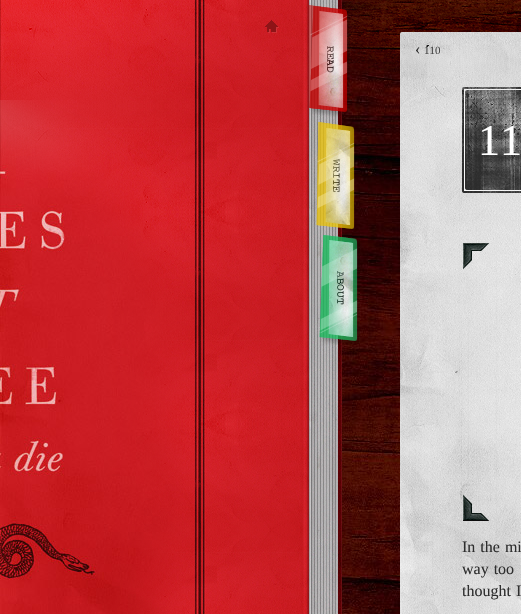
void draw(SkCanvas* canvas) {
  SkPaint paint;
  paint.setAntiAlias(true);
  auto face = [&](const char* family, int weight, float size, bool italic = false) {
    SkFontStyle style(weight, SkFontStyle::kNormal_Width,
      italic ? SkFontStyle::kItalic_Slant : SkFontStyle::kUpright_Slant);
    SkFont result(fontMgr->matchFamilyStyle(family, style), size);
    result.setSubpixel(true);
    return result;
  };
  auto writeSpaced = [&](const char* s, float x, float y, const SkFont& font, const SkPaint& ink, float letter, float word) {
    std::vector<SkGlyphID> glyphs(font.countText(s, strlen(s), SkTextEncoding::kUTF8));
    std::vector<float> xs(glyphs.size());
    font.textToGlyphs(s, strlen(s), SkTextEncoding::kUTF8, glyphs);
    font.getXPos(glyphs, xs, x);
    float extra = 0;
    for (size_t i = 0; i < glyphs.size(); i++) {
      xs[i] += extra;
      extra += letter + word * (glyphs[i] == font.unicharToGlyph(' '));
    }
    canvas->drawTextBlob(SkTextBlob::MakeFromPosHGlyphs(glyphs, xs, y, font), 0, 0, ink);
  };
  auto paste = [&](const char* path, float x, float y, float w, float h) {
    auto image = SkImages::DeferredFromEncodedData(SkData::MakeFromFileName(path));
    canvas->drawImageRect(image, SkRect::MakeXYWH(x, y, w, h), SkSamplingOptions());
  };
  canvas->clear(0xffffffff);
  paste("img/1.png", 342, 0, 58, 614);
  paste("img/2.png", 0, 0, 342, 614);
  paste("img/3.png", 0, 100, 199, 514);
  paste("img/4.png", 265, 20, 14, 13);
  paste("img/9.png", 400, 38, 121, 576);
  paste("img/8.png", 342, 0, 179, 78);
  paste("img/5.png", 309, 5, 41, 113);
  paste("img/6.png", 316, 122, 39, 107);
  paste("img/7.png", 319, 235, 41, 110);
  paste("img/10.png", 462, 87, 59, 106);
  paste("img/11.png", 463, 243, 27, 278);
  auto f0 = face("Liberation Serif", 400, 16);
  paint.setColor(0xff2e2e2e);
  canvas->drawString("‹", 415, 54, f0, paint);
  auto f1 = face("Liberation Serif", 400, 11);
  paint.setColor(0xff474747);
  canvas->drawString("110", 424, 54, f1, paint);
  auto f2 = face("Liberation Serif", 400, 44);
  paint.setColor(0xffffffff);
  canvas->drawString("11", 478, 155, f2, paint);
  paint.setColor(0xff2e2e2e);
  {
    const struct { const char* s; float x, y; } items[] = {
      {"In the mi", 462, 552},
      {"way too", 462, 574},
      {"thought I", 462, 596},
    };
    for (auto [s, x, y] : items) {
      writeSpaced(s, x, y, f0, paint, 0, 1);
    }
  }
}
